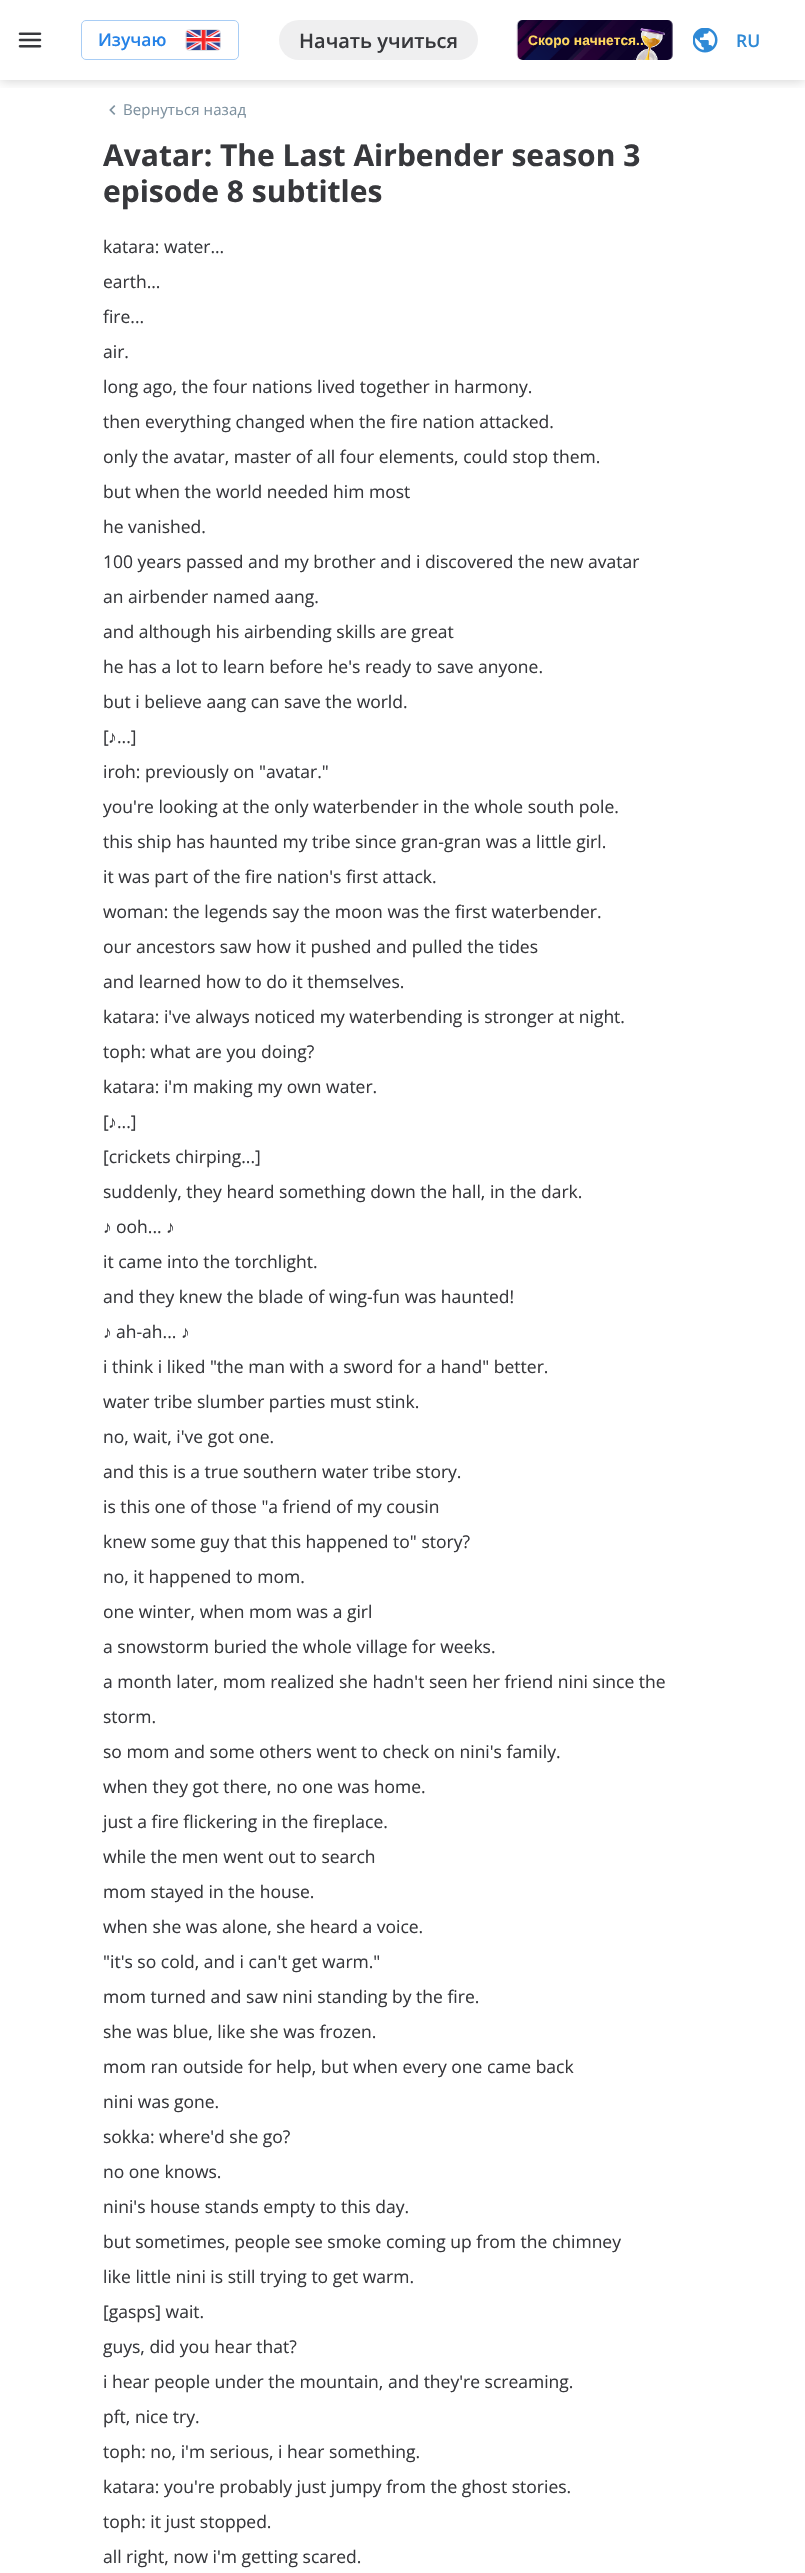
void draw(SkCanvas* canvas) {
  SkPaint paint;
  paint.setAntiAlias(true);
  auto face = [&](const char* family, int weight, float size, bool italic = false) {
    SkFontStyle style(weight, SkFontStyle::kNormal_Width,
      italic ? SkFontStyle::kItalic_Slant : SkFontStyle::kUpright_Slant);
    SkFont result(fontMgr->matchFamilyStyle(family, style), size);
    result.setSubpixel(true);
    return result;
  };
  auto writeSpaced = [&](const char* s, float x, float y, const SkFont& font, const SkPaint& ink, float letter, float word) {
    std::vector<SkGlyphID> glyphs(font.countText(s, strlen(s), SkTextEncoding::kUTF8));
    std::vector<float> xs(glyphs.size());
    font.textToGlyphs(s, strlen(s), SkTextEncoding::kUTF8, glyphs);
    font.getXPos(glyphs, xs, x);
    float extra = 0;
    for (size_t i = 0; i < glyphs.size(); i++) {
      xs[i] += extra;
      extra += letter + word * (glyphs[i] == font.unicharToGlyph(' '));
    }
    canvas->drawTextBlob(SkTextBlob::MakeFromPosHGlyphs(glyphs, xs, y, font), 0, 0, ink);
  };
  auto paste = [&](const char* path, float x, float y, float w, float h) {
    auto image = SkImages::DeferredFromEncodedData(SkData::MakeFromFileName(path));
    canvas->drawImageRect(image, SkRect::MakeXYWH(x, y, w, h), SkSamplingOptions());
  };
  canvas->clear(0xffffffff);
  canvas->save();
  canvas->clipRect(SkRect::MakeXYWH(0, 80, 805, 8));
  paint.setColor(0x33000000);
  paint.setMaskFilter(SkMaskFilter::MakeBlur(kNormal_SkBlurStyle, 6));
  canvas->drawRect(SkRect::MakeXYWH(0, 0, 805, 80), paint);
  paint.setMaskFilter(nullptr);
  canvas->restore();
  paste("img/1.png", 18, 32, 24, 16);
  paint.setStroke(true);
  paint.setStrokeWidth(1);
  paint.setColor(0xffa8cdf5);
  canvas->drawRoundRect(SkRect::MakeXYWH(81.5f, 20.5f, 157, 39), 4.5f, 4.5f, paint);
  paste("img/2.png", 185, 29, 36, 22);
  paint.setStroke(false);
  paint.setColor(0xffefeff0);
  canvas->drawRoundRect(SkRect::MakeXYWH(279, 20, 199, 40), 20, 20, paint);
  paste("img/3.png", 516, 20, 157, 40);
  paste("img/4.png", 636, 28, 29, 32);
  paste("img/5.png", 693, 28, 25, 25);
  paste("img/6.png", 109, 105, 7, 10);
  auto f0 = face("Open Sans", 600, 17.5f);
  paint.setColor(0xff2582e7);
  canvas->drawString("Изучаю", 98, 46, f0, paint);
  auto f1 = face("Open Sans", 600, 20);
  paint.setColor(0xff37383c);
  canvas->drawString("Начать учиться", 299, 48, f1, paint);
  auto f2 = face("Liberation Sans", 700, 13.75f);
  paint.setColor(0xffffd85f);
  canvas->drawString("Скоро начнется...", 528, 45, f2, paint);
  paint.setColor(0xff2e89d6);
  canvas->drawString("RU", 736, 47, f0, paint);
  auto f3 = face("Open Sans", 400, 15);
  paint.setColor(0xff7e919f);
  writeSpaced("Вернуться назад", 123, 115, f3, paint, 0.1f, 0);
  auto f4 = face("Open Sans", 700, 30);
  paint.setColor(0xff37383c);
  canvas->drawString("Avatar: The Last Airbender season 3", 103, 166, f4, paint);
  canvas->drawString("episode 8 subtitles", 103, 202, f4, paint);
  auto f5 = face("Open Sans", 400, 17.5f);
  {
    const struct { const char* s; float x, y; } items[] = {
      {"katara: water...", 103, 253},
      {"earth...", 103, 288},
      {"fire...", 103, 323},
      {"air.", 103, 358},
      {"long ago, the four nations lived together in harmony.", 103, 393},
      {"then everything changed when the fire nation attacked.", 103, 428},
      {"only the avatar, master of all four elements, could stop them.", 103, 463},
      {"but when the world needed him most", 103, 498},
      {"he vanished.", 103, 533},
      {"100 years passed and my brother and i discovered the new avatar", 103, 568},
      {"an airbender named aang.", 103, 603},
      {"and although his airbending skills are great", 103, 638},
      {"he has a lot to learn before he's ready to save anyone.", 103, 673},
      {"but i believe aang can save the world.", 103, 708},
      {"[", 103, 743},
    };
    for (auto [s, x, y] : items) {
      canvas->drawString(s, x, y, f5, paint);
    }
  }
  auto f6 = face("Liberation Sans", 400, 17.5f);
  canvas->drawString("♪", 108, 743, f6, paint);
  {
    const struct { const char* s; float x, y; } items[] = {
      {"...]", 117, 743},
      {"iroh: previously on \"avatar.\"", 103, 778},
      {"you're looking at the only waterbender in the whole south pole.", 103, 813},
      {"this ship has haunted my tribe since gran-gran was a little girl.", 103, 848},
      {"it was part of the fire nation's first attack.", 103, 883},
      {"woman: the legends say the moon was the first waterbender.", 103, 918},
      {"our ancestors saw how it pushed and pulled the tides", 103, 953},
      {"and learned how to do it themselves.", 103, 988},
      {"katara: i've always noticed my waterbending is stronger at night.", 103, 1023},
      {"toph: what are you doing?", 103, 1058},
      {"katara: i'm making my own water.", 103, 1093},
      {"[", 103, 1128},
    };
    for (auto [s, x, y] : items) {
      canvas->drawString(s, x, y, f5, paint);
    }
  }
  canvas->drawString("♪", 108, 1128, f6, paint);
  {
    const struct { const char* s; float x, y; } items[] = {
      {"...]", 117, 1128},
      {"[crickets chirping...]", 103, 1163},
      {"suddenly, they heard something down the hall, in the dark.", 103, 1198},
    };
    for (auto [s, x, y] : items) {
      canvas->drawString(s, x, y, f5, paint);
    }
  }
  canvas->drawString("♪", 103, 1233, f6, paint);
  canvas->drawString("ooh...", 116, 1233, f5, paint);
  canvas->drawString("♪", 166, 1233, f6, paint);
  canvas->drawString("it came into the torchlight.", 103, 1268, f5, paint);
  canvas->drawString("and they knew the blade of wing-fun was haunted!", 103, 1303, f5, paint);
  canvas->drawString("♪", 103, 1338, f6, paint);
  canvas->drawString("ah-ah...", 116, 1338, f5, paint);
  canvas->drawString("♪", 181, 1338, f6, paint);
  {
    const struct { const char* s; float x, y; } items[] = {
      {"i think i liked \"the man with a sword for a hand\" better.", 103, 1373},
      {"water tribe slumber parties must stink.", 103, 1408},
      {"no, wait, i've got one.", 103, 1443},
      {"and this is a true southern water tribe story.", 103, 1478},
      {"is this one of those \"a friend of my cousin", 103, 1513},
      {"knew some guy that this happened to\" story?", 103, 1548},
      {"no, it happened to mom.", 103, 1583},
      {"one winter, when mom was a girl", 103, 1618},
      {"a snowstorm buried the whole village for weeks.", 103, 1653},
      {"a month later, mom realized she hadn't seen her friend nini since the", 103, 1688},
      {"storm.", 103, 1723},
      {"so mom and some others went to check on nini's family.", 103, 1758},
      {"when they got there, no one was home.", 103, 1793},
      {"just a fire flickering in the fireplace.", 103, 1828},
      {"while the men went out to search", 103, 1863},
      {"mom stayed in the house.", 103, 1898},
      {"when she was alone, she heard a voice.", 103, 1933},
      {"\"it's so cold, and i can't get warm.\"", 103, 1968},
      {"mom turned and saw nini standing by the fire.", 103, 2003},
      {"she was blue, like she was frozen.", 103, 2038},
      {"mom ran outside for help, but when every one came back", 103, 2073},
      {"nini was gone.", 103, 2108},
      {"sokka: where'd she go?", 103, 2143},
      {"no one knows.", 103, 2178},
      {"nini's house stands empty to this day.", 103, 2213},
      {"but sometimes, people see smoke coming up from the chimney", 103, 2248},
      {"like little nini is still trying to get warm.", 103, 2283},
      {"[gasps] wait.", 103, 2318},
      {"guys, did you hear that?", 103, 2353},
      {"i hear people under the mountain, and they're screaming.", 103, 2388},
      {"pft, nice try.", 103, 2423},
      {"toph: no, i'm serious, i hear something.", 103, 2458},
      {"katara: you're probably just jumpy from the ghost stories.", 103, 2493},
      {"toph: it just stopped.", 103, 2528},
      {"all right, now i'm getting scared.", 103, 2563},
    };
    for (auto [s, x, y] : items) {
      canvas->drawString(s, x, y, f5, paint);
    }
  }
}
